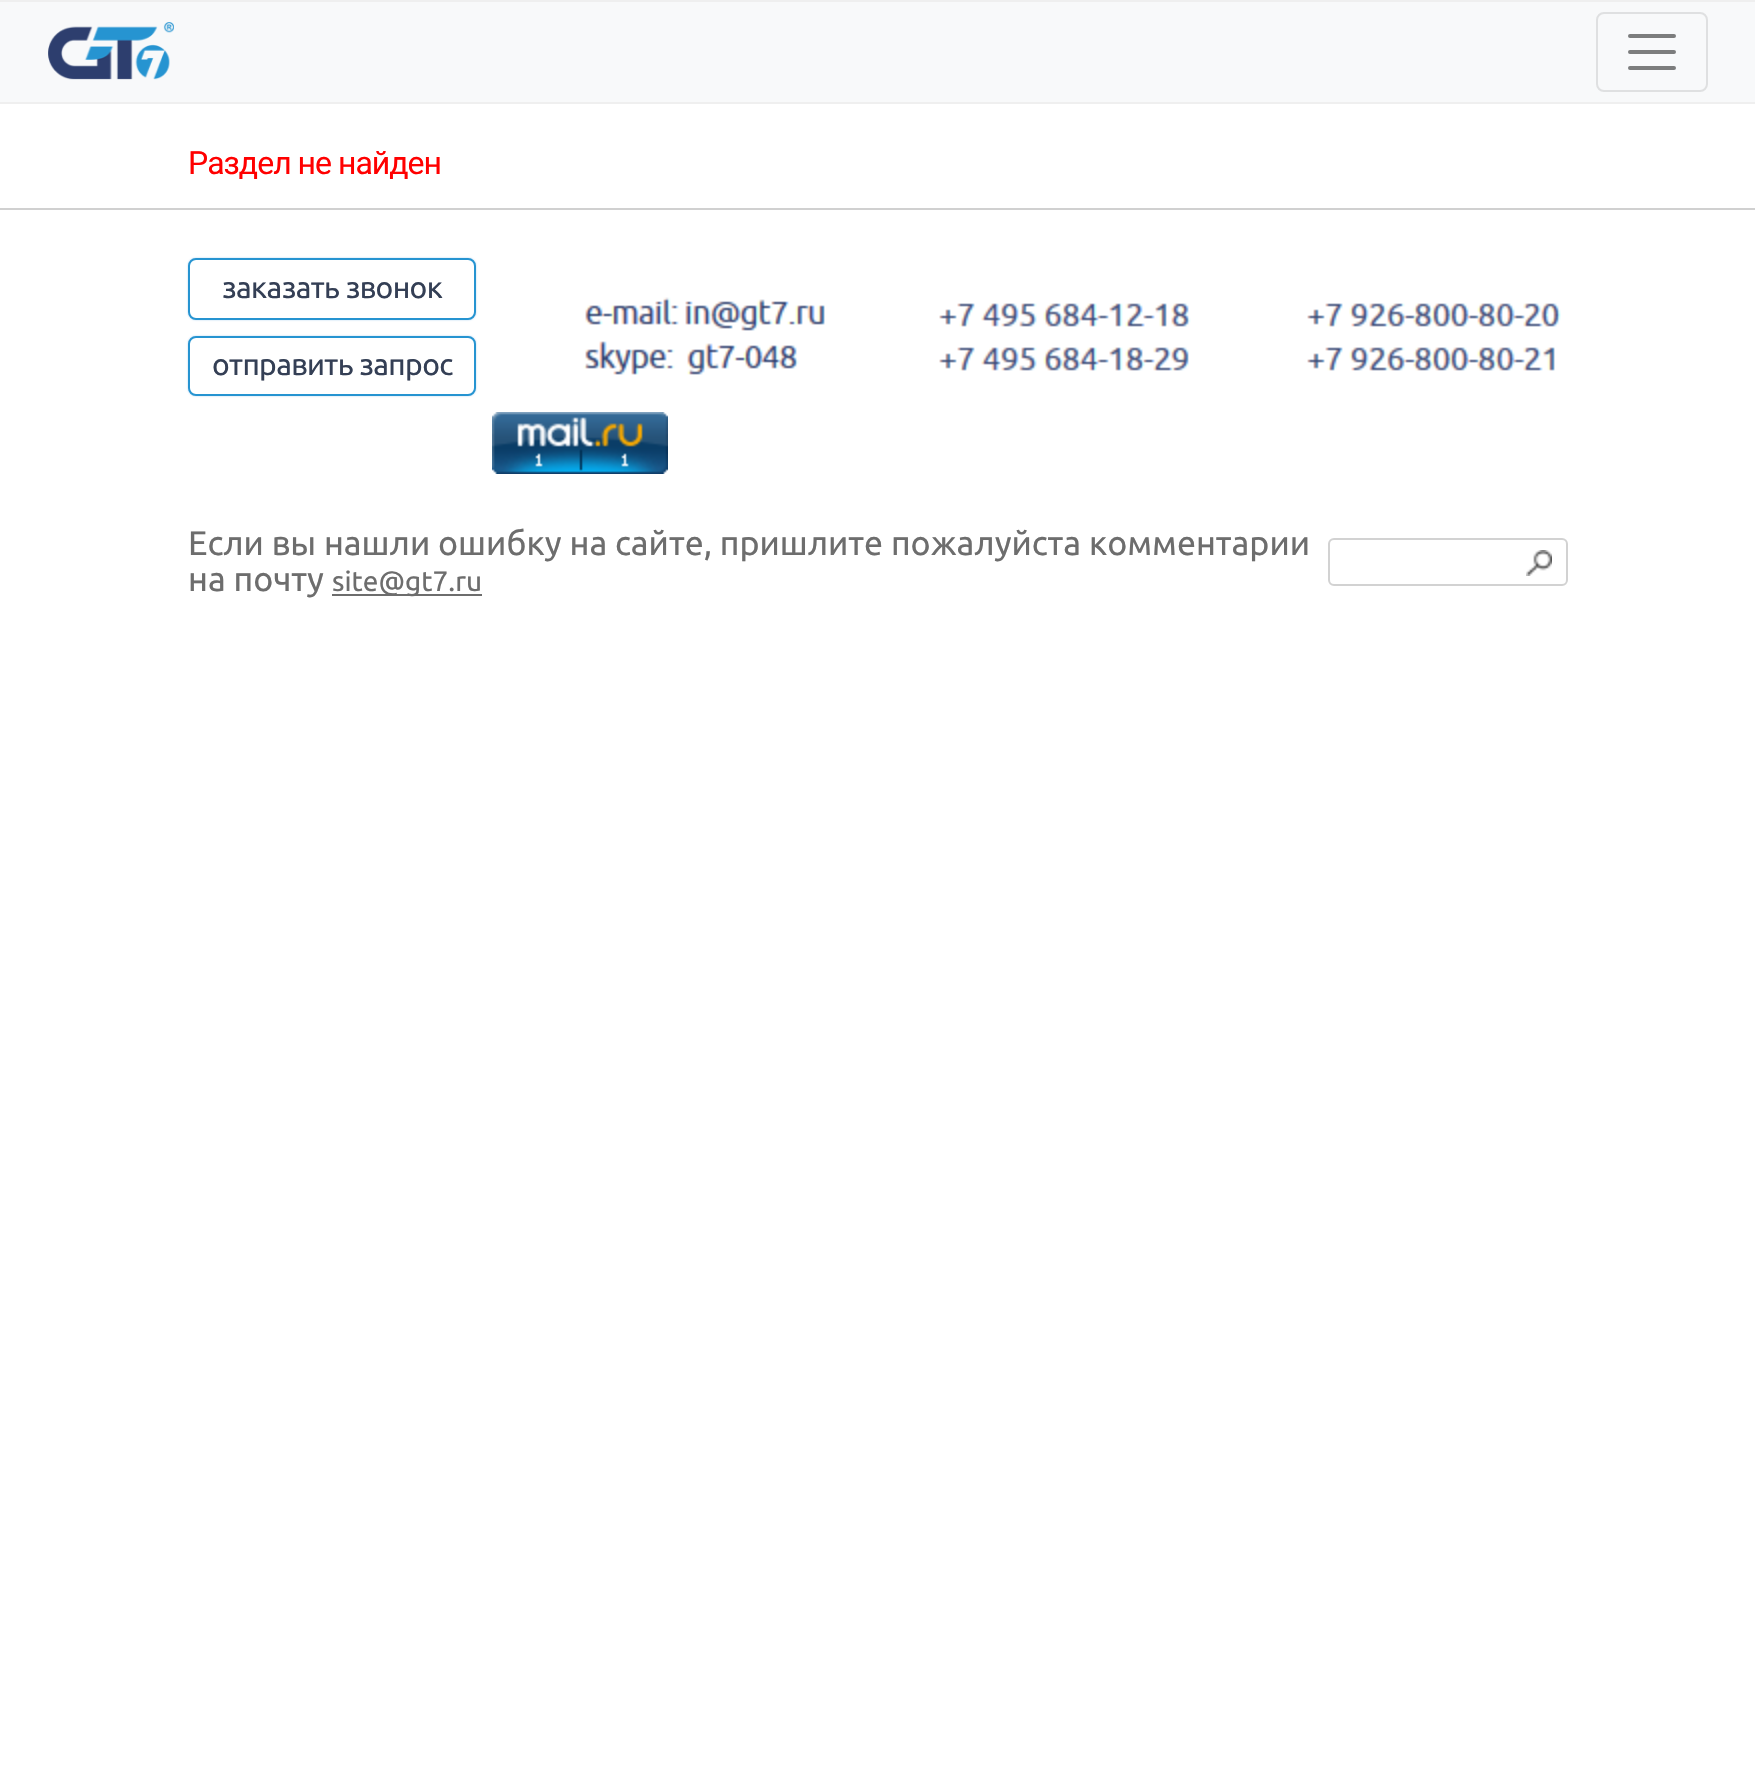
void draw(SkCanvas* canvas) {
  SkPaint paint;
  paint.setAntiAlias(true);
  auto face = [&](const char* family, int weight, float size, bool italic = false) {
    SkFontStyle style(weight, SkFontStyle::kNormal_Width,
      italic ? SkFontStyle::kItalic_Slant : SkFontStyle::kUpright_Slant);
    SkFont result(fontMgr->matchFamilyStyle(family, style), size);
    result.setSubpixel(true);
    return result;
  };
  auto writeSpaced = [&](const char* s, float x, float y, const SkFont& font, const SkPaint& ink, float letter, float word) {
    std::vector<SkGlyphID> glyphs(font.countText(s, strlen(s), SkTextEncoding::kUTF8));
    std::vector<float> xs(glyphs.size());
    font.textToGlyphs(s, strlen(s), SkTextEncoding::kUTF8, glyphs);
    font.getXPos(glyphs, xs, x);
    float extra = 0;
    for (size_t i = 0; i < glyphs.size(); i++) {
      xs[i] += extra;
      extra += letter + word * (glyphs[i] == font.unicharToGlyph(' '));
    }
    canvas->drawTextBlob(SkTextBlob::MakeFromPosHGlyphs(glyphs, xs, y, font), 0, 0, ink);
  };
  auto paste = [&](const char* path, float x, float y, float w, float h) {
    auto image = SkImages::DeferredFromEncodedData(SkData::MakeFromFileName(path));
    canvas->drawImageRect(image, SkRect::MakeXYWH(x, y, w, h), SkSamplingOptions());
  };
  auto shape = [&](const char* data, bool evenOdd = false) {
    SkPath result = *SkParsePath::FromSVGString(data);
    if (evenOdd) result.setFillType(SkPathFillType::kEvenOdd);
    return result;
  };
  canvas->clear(0xffffffff);
  {
    const struct { float x, y, w, h; SkColor color; } items[] = {
      {0, 2, 1755, 100, 0xfff8f9fa},
      {0, 0, 1755, 2, 0xffefefef},
      {0, 102, 1755, 2, 0xffefefef},
    };
    for (auto [x, y, w, h, color] : items) {
      paint.setColor(color);
      canvas->drawRect(SkRect::MakeXYWH(x, y, w, h), paint);
    }
  }
  paste("img/1.png", 48, 22, 126, 58);
  paint.setStroke(true);
  paint.setStrokeWidth(2);
  paint.setColor(0xffdfe0e1);
  canvas->drawRoundRect(SkRect::MakeXYWH(1597, 13, 110, 78), 7, 7, paint);
  paint.setStrokeWidth(4);
  paint.setStrokeCap(SkPaint::kRound_Cap);
  paint.setColor(0xff7c7d7d);
  canvas->drawPath(shape("M1630 36H1674M1630 52H1674M1630 68H1674"), paint);
  paint.setStroke(false);
  paint.setColor(0xffd0d0d0);
  canvas->drawRect(SkRect::MakeXYWH(0, 208, 1755, 2), paint);
  paint.setColor(0x8058a1e1);
  paint.setMaskFilter(SkMaskFilter::MakeBlur(kNormal_SkBlurStyle, 1));
  canvas->drawRoundRect(SkRect::MakeXYWH(188, 258, 288, 62), 8, 8, paint);
  paint.setMaskFilter(nullptr);
  paint.setColor(0xffffffff);
  canvas->drawRoundRect(SkRect::MakeXYWH(189, 259, 286, 60), 7, 7, paint);
  paint.setStroke(true);
  paint.setStrokeWidth(2);
  paint.setStrokeCap(SkPaint::kButt_Cap);
  paint.setColor(0xff2694d1);
  canvas->drawRoundRect(SkRect::MakeXYWH(189, 259, 286, 60), 7, 7, paint);
  paint.setStroke(false);
  paint.setColor(0x8058a1e1);
  paint.setMaskFilter(SkMaskFilter::MakeBlur(kNormal_SkBlurStyle, 1));
  canvas->drawRoundRect(SkRect::MakeXYWH(188, 336, 288, 60), 8, 8, paint);
  paint.setMaskFilter(nullptr);
  paint.setColor(0xffffffff);
  canvas->drawRoundRect(SkRect::MakeXYWH(189, 337, 286, 58), 7, 7, paint);
  paint.setStroke(true);
  paint.setColor(0xff2694d1);
  canvas->drawRoundRect(SkRect::MakeXYWH(189, 337, 286, 58), 7, 7, paint);
  paste("img/2.png", 583, 297, 242, 78);
  paste("img/3.png", 939, 303, 252, 68);
  paste("img/4.png", 1307, 303, 254, 68);
  paste("img/5.png", 492, 412, 176, 62);
  paint.setStroke(false);
  paint.setColor(0xff6d6d6d);
  canvas->drawRect(SkRect::MakeXYWH(332, 594, 150, 2), paint);
  paste("img/6.png", 1526, 550, 26, 26);
  paint.setStroke(true);
  paint.setColor(0xffd2d2d2);
  canvas->drawRoundRect(SkRect::MakeXYWH(1329, 539, 238, 46), 5, 5, paint);
  auto f0 = face("Roboto", 400, 32);
  paint.setStroke(false);
  paint.setColor(0xffff0000);
  writeSpaced("Раздел не найден", 188, 174, f0, paint, -1, 0);
  auto f1 = face("Ubuntu", 400, 30);
  paint.setColor(0xff343f55);
  writeSpaced("заказать звонок", 222, 298, f1, paint, -0.6f, 0);
  writeSpaced("отправить запрос", 212, 375, f1, paint, -0.6f, 0);
  auto f2 = face("Ubuntu", 400, 34);
  paint.setColor(0xff6d6d6d);
  canvas->drawString("Если вы нашли ошибку на сайте, пришлите пожалуйста комментарии", 188, 555, f2, paint);
  canvas->drawString("на почту", 188, 591, f2, paint);
  auto f3 = face("Ubuntu", 400, 28);
  canvas->drawString("site@gt7.ru", 332, 591, f3, paint);
}
